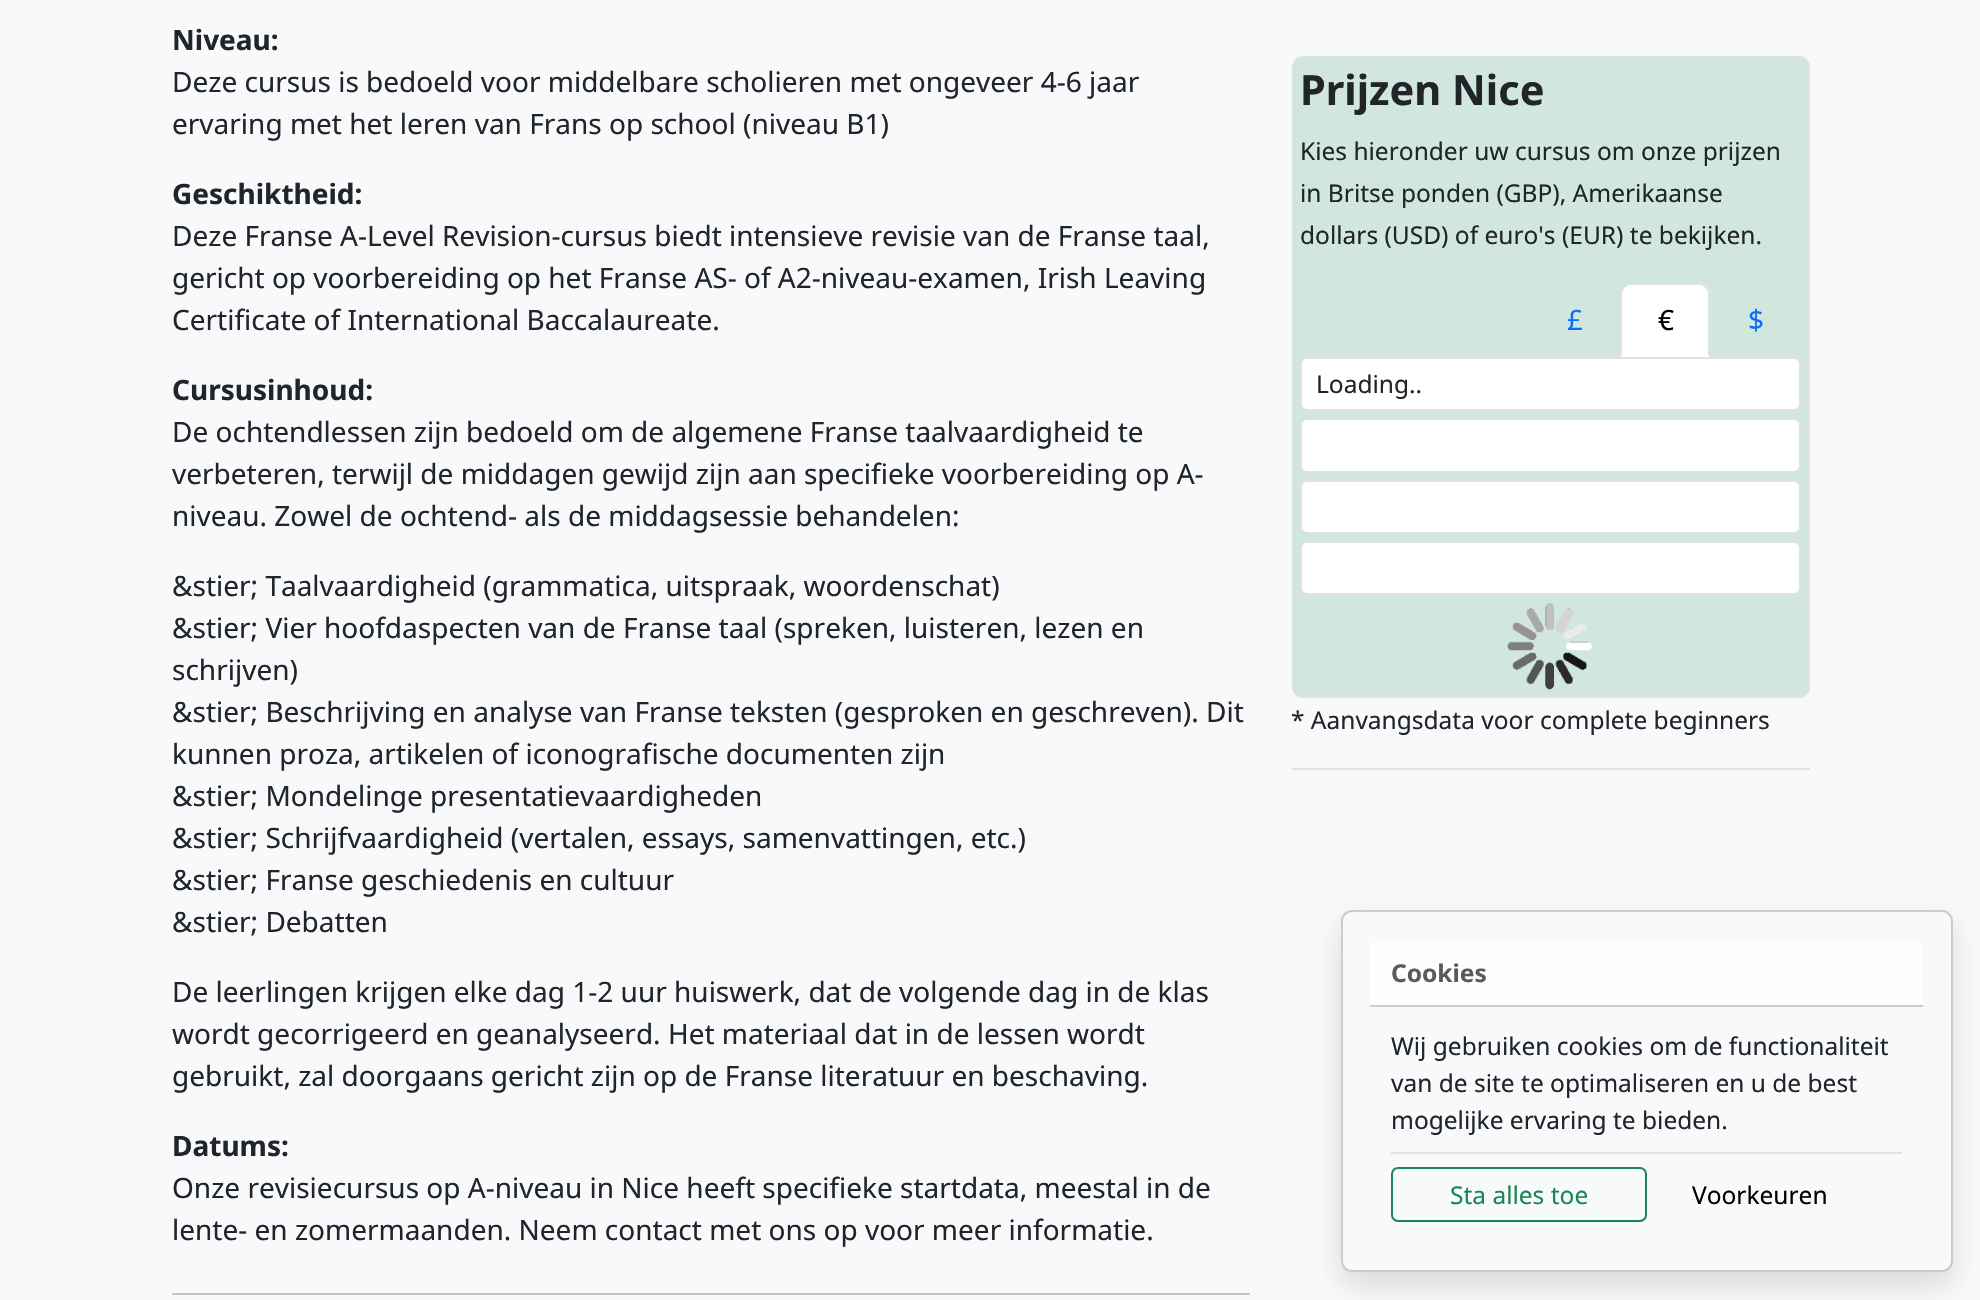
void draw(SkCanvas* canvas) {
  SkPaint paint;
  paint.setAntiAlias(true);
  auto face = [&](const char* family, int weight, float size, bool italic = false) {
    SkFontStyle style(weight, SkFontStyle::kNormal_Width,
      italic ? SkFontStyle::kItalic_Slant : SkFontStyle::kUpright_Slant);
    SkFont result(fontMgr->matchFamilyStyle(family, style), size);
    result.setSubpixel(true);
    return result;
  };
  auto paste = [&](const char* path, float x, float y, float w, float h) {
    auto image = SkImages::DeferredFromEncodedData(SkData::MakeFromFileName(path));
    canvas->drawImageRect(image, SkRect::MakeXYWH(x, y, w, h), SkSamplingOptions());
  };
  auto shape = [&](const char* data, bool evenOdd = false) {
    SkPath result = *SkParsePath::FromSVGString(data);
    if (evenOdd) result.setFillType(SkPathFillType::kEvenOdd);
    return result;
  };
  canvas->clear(0xfff8f9fa);
  paint.setColor(0xffc2c4c6);
  canvas->drawRect(SkRect::MakeXYWH(172, 1293, 1078, 2), paint);
  paint.setColor(0xffd1e7dd);
  canvas->drawRoundRect(SkRect::MakeXYWH(1293, 57, 516, 640), 10, 10, paint);
  paint.setStroke(true);
  paint.setStrokeWidth(2);
  paint.setColor(0xffdee2e6);
  canvas->drawRoundRect(SkRect::MakeXYWH(1293, 57, 516, 640), 10, 10, paint);
  paint.setStroke(false);
  canvas->drawRect(SkRect::MakeXYWH(1300, 355, 501, 2), paint);
  paint.setColor(0xffffffff);
  canvas->drawPath(shape("M1632 284H1699C1705 284 1710 289 1710 295V357H1621V295C1621 289 1626 284 1632 284Z"), paint);
  paint.setColor(0xffdee2e6);
  canvas->drawPath(shape("M1631 284C1628 284 1625 285 1624 287L1625 288C1626 286 1628 285 1631 285H1699C1702 285 1704 286 1705 288L1707 287C1705 285 1702 284 1699 284Z"), paint);
  canvas->drawPath(shape("M1707 287C1708 288 1709 290 1710 292V357L1708 355V294C1708 292 1707 289 1705 288Z"), paint);
  paint.setColor(0xffffffff);
  canvas->drawPath(shape("M1710 357L1708 355H1622L1620 357Z"), paint);
  paint.setColor(0xffdee2e6);
  canvas->drawPath(shape("M1620 357L1622 355V294C1622 292 1623 289 1625 288L1624 287C1622 288 1621 289 1620 291Z"), paint);
  paint.setColor(0xffffffff);
  canvas->drawRoundRect(SkRect::MakeXYWH(1301, 358, 499, 52), 6, 6, paint);
  paint.setStroke(true);
  paint.setColor(0xffdee2e6);
  canvas->drawRoundRect(SkRect::MakeXYWH(1301, 358, 499, 52), 6, 6, paint);
  paint.setStroke(false);
  paint.setColor(0xffffffff);
  canvas->drawRoundRect(SkRect::MakeXYWH(1301, 419, 499, 53), 6, 6, paint);
  paint.setStroke(true);
  paint.setColor(0xffdee2e6);
  canvas->drawRoundRect(SkRect::MakeXYWH(1301, 419, 499, 53), 6, 6, paint);
  paint.setStroke(false);
  paint.setColor(0xffffffff);
  canvas->drawRoundRect(SkRect::MakeXYWH(1301, 481, 499, 52), 6, 6, paint);
  paint.setStroke(true);
  paint.setColor(0xffdee2e6);
  canvas->drawRoundRect(SkRect::MakeXYWH(1301, 481, 499, 52), 6, 6, paint);
  paint.setStroke(false);
  paint.setColor(0xffffffff);
  canvas->drawRoundRect(SkRect::MakeXYWH(1301, 542, 499, 52), 6, 6, paint);
  paint.setStroke(true);
  paint.setColor(0xffdee2e6);
  canvas->drawRoundRect(SkRect::MakeXYWH(1301, 542, 499, 52), 6, 6, paint);
  paste("img/1.png", 1507, 603, 86, 87);
  paint.setStroke(false);
  canvas->drawRect(SkRect::MakeXYWH(1292, 768, 518, 2), paint);
  canvas->save();
  canvas->clipPath(shape("M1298 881H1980V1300H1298ZM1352 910H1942C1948 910 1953 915 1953 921V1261C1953 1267 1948 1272 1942 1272H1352C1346 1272 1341 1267 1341 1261V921C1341 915 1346 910 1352 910Z", true), true);
  paint.setColor(0x26212529);
  paint.setMaskFilter(SkMaskFilter::MakeBlur(kNormal_SkBlurStyle, 14));
  canvas->drawRoundRect(SkRect::MakeXYWH(1341, 924, 612, 362), 11, 11, paint);
  paint.setMaskFilter(nullptr);
  canvas->restore();
  paint.setStroke(true);
  paint.setColor(0x2e000000);
  canvas->drawRoundRect(SkRect::MakeXYWH(1342, 911, 610, 360), 10, 10, paint);
  paint.setStroke(false);
  paint.setColor(0xfffefefe);
  canvas->drawPath(shape("M1379 940H1914C1919 940 1923 944 1923 949V1005H1370V949C1370 944 1374 940 1379 940Z"), paint);
  paint.setColor(0xffcccdce);
  canvas->drawRect(SkRect::MakeXYWH(1370, 1005, 553, 2), paint);
  paint.setColor(0xffdee2e6);
  canvas->drawRect(SkRect::MakeXYWH(1391, 1152, 511, 2), paint);
  paint.setStroke(true);
  paint.setColor(0xff198754);
  canvas->drawRoundRect(SkRect::MakeXYWH(1392, 1168, 254, 53), 6, 6, paint);
  auto f0 = face("Noto Sans", 700, 28);
  paint.setStroke(false);
  paint.setColor(0xff212529);
  canvas->drawString("Niveau:", 172, 50, f0, paint);
  auto f1 = face("Noto Sans", 400, 28);
  canvas->drawString("Deze cursus is bedoeld voor middelbare scholieren met ongeveer 4-6 jaar", 172, 92, f1, paint);
  canvas->drawString("ervaring met het leren van Frans op school (niveau B1)", 172, 134, f1, paint);
  canvas->drawString("Geschiktheid:", 172, 204, f0, paint);
  {
    const struct { const char* s; float x, y; } items[] = {
      {"Deze Franse A-Level Revision-cursus biedt intensieve revisie van de Franse taal,", 172, 246},
      {"gericht op voorbereiding op het Franse AS- of A2-niveau-examen, Irish Leaving", 172, 288},
      {"Certificate of International Baccalaureate.", 172, 330},
    };
    for (auto [s, x, y] : items) {
      canvas->drawString(s, x, y, f1, paint);
    }
  }
  canvas->drawString("Cursusinhoud:", 172, 400, f0, paint);
  {
    const struct { const char* s; float x, y; } items[] = {
      {"De ochtendlessen zijn bedoeld om de algemene Franse taalvaardigheid te", 172, 442},
      {"verbeteren, terwijl de middagen gewijd zijn aan specifieke voorbereiding op A-", 172, 484},
      {"niveau. Zowel de ochtend- als de middagsessie behandelen:", 172, 526},
      {"&stier; Taalvaardigheid (grammatica, uitspraak, woordenschat)", 172, 596},
      {"&stier; Vier hoofdaspecten van de Franse taal (spreken, luisteren, lezen en", 172, 638},
      {"schrijven)", 172, 680},
      {"&stier; Beschrijving en analyse van Franse teksten (gesproken en geschreven). Dit", 172, 722},
      {"kunnen proza, artikelen of iconografische documenten zijn", 172, 764},
      {"&stier; Mondelinge presentatievaardigheden", 172, 806},
      {"&stier; Schrijfvaardigheid (vertalen, essays, samenvattingen, etc.)", 172, 848},
      {"&stier; Franse geschiedenis en cultuur", 172, 890},
      {"&stier; Debatten", 172, 932},
      {"De leerlingen krijgen elke dag 1-2 uur huiswerk, dat de volgende dag in de klas", 172, 1002},
      {"wordt gecorrigeerd en geanalyseerd. Het materiaal dat in de lessen wordt", 172, 1044},
      {"gebruikt, zal doorgaans gericht zijn op de Franse literatuur en beschaving.", 172, 1086},
    };
    for (auto [s, x, y] : items) {
      canvas->drawString(s, x, y, f1, paint);
    }
  }
  canvas->drawString("Datums:", 172, 1156, f0, paint);
  canvas->drawString("Onze revisiecursus op A-niveau in Nice heeft specifieke startdata, meestal in de", 172, 1198, f1, paint);
  canvas->drawString("lente- en zomermaanden. Neem contact met ons op voor meer informatie.", 172, 1240, f1, paint);
  auto f2 = face("Noto Sans", 700, 41.5f);
  canvas->drawString("Prijzen Nice", 1300, 105, f2, paint);
  auto f3 = face("Noto Sans", 400, 24.5f);
  {
    const struct { const char* s; float x, y; } items[] = {
      {"Kies hieronder uw cursus om onze prijzen", 1300, 160},
      {"in Britse ponden (GBP), Amerikaanse", 1300, 202},
      {"dollars (USD) of euro's (EUR) te bekijken.", 1300, 244},
    };
    for (auto [s, x, y] : items) {
      canvas->drawString(s, x, y, f3, paint);
    }
  }
  paint.setColor(0xff0d6efd);
  canvas->drawString("£", 1567, 330, f1, paint);
  paint.setColor(0xff000000);
  canvas->drawString("€", 1658, 330, f1, paint);
  paint.setColor(0xff0d6efd);
  canvas->drawString("$", 1748, 330, f1, paint);
  paint.setColor(0xff212529);
  canvas->drawString("Loading..", 1316, 393, f3, paint);
  canvas->drawString("* Aanvangsdata voor complete beginners", 1291, 729, f3, paint);
  auto f4 = face("Noto Sans", 700, 24.5f);
  paint.setColor(0xff585b5e);
  canvas->drawString("Cookies", 1391, 982, f4, paint);
  paint.setColor(0xff212529);
  {
    const struct { const char* s; float x, y; } items[] = {
      {"Wij gebruiken cookies om de functionaliteit", 1391, 1055},
      {"van de site te optimaliseren en u de best", 1391, 1092},
      {"mogelijke ervaring te bieden.", 1391, 1129},
    };
    for (auto [s, x, y] : items) {
      canvas->drawString(s, x, y, f3, paint);
    }
  }
  paint.setColor(0xff198754);
  canvas->drawString("Sta alles toe", 1450, 1204, f3, paint);
  paint.setColor(0xff000000);
  canvas->drawString("Voorkeuren", 1692, 1204, f3, paint);
}
